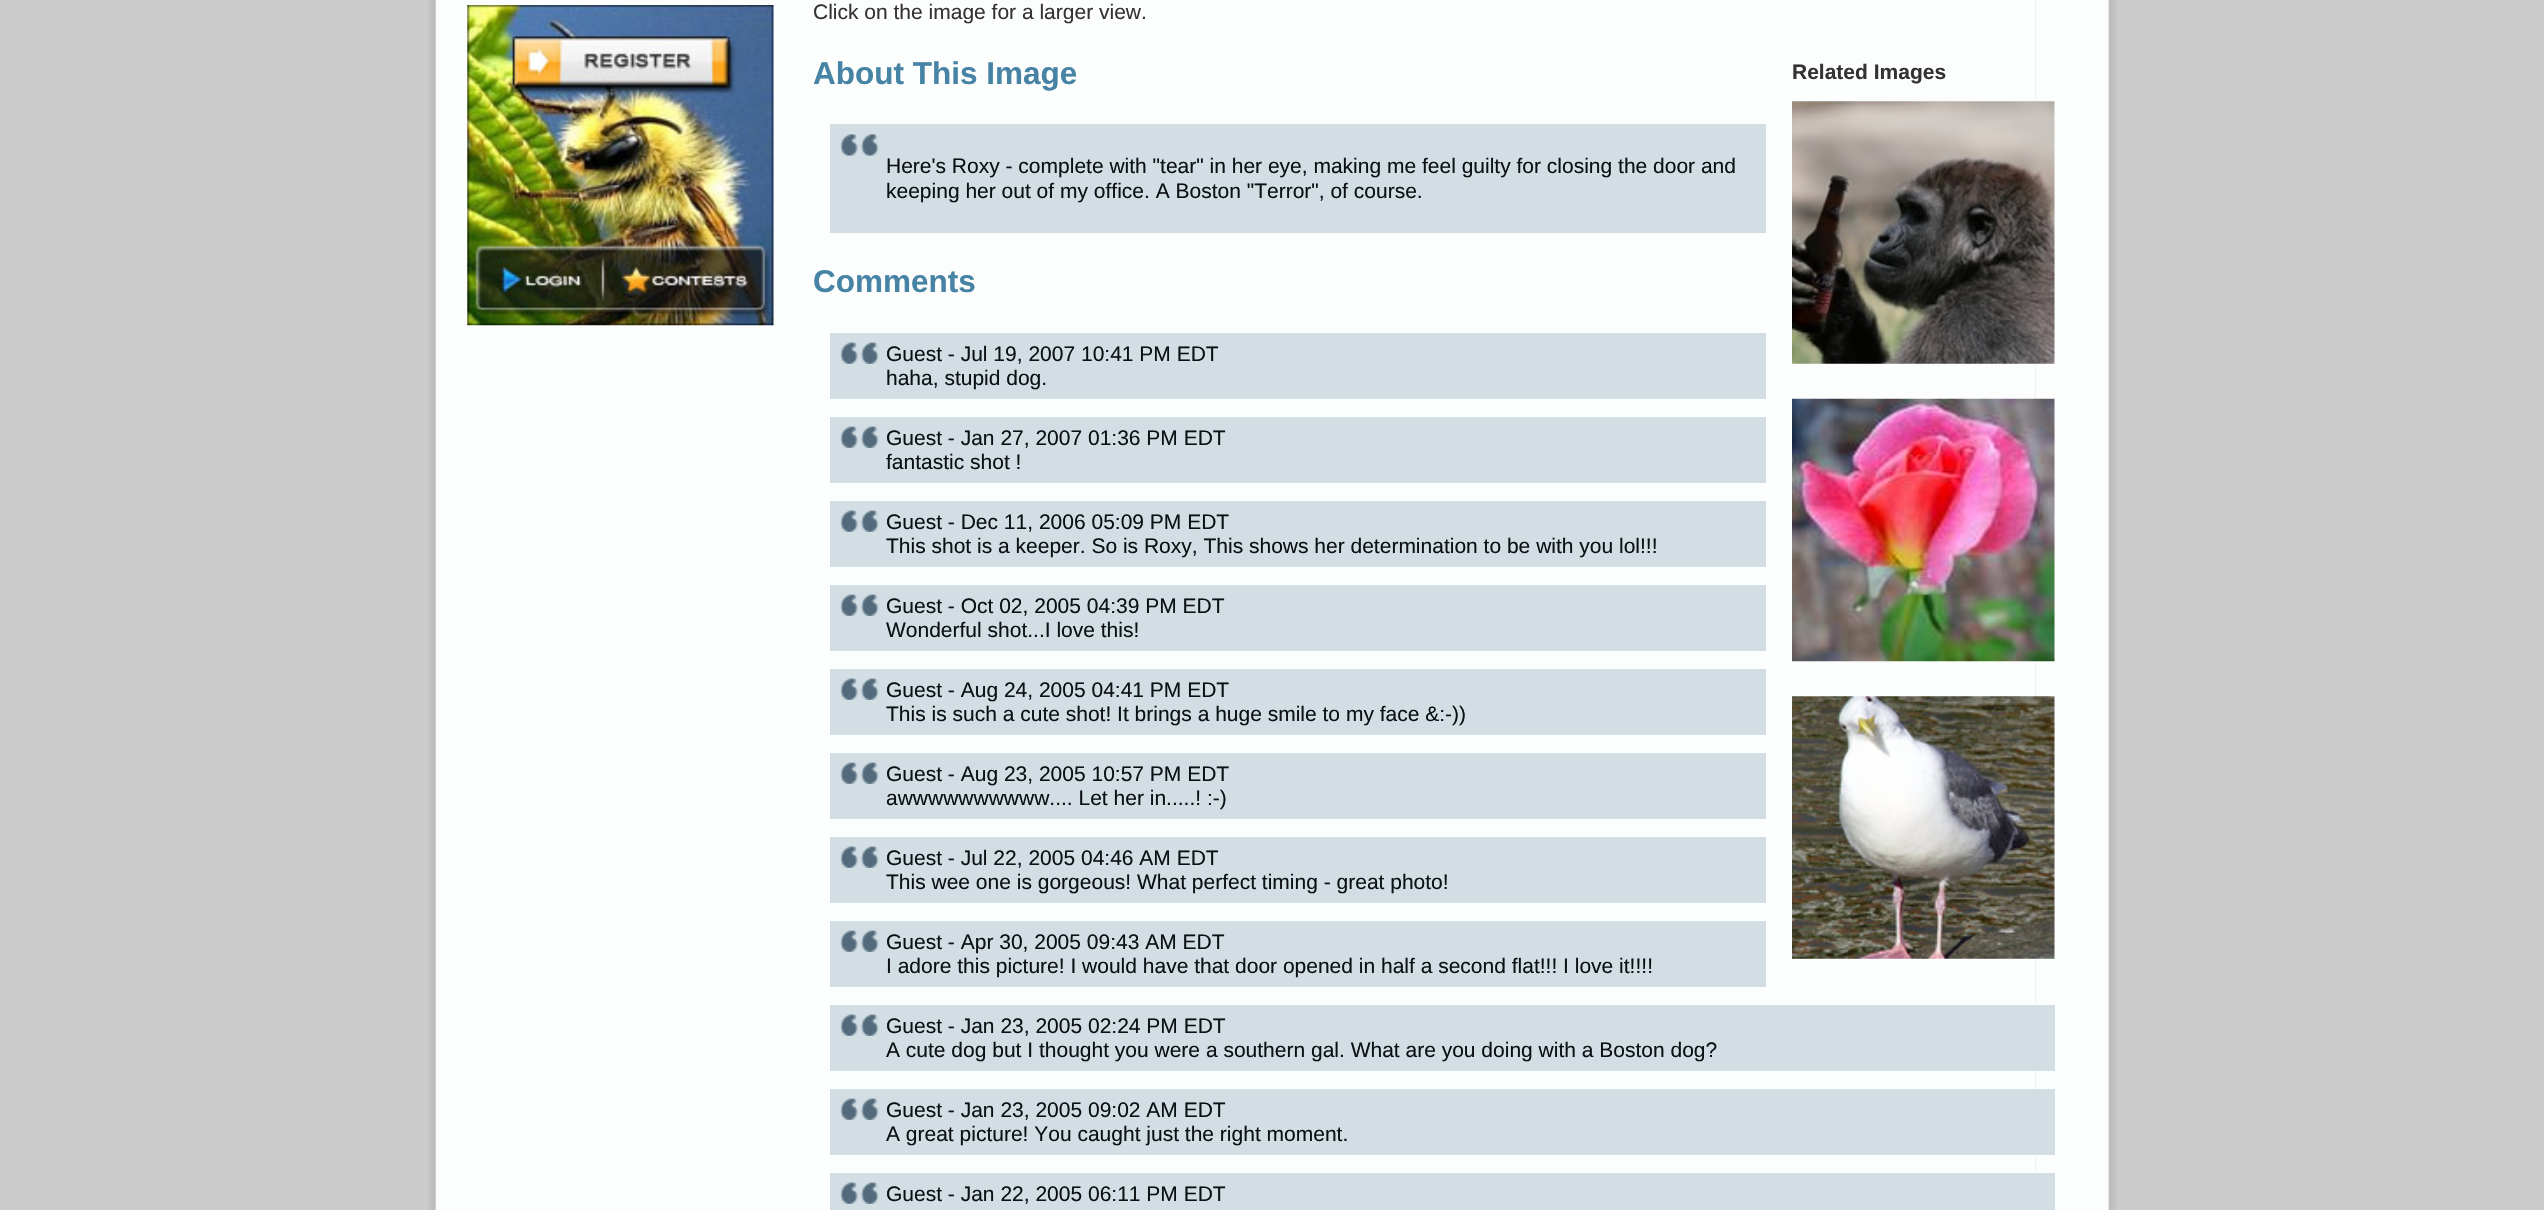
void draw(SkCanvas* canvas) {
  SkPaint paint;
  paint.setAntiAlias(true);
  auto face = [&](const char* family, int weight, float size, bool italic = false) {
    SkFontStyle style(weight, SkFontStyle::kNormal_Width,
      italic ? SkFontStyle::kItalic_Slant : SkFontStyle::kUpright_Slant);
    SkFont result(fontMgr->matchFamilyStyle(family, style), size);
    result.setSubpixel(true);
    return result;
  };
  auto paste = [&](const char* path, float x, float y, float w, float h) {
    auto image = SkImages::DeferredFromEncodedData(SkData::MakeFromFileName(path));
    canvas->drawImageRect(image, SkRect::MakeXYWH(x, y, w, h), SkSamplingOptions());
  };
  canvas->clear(0xffcccccc);
  paste("img/1.png", 428, 0, 81, 1210);
  paint.setColor(0xfffcfdfd);
  canvas->drawRect(SkRect::MakeXYWH(509, 0, 1526, 1210), paint);
  paste("img/2.png", 2035, 0, 82, 1210);
  paste("img/3.png", 467, 5, 307, 321);
  paste("img/4.png", 1792, 101, 263, 263);
  paste("img/5.png", 1792, 398, 263, 264);
  paste("img/6.png", 1792, 696, 263, 263);
  paint.setColor(0xffd2dee4);
  canvas->drawRect(SkRect::MakeXYWH(830, 124, 936, 109), paint);
  paste("img/7.png", 840, 134, 39, 22);
  canvas->drawRect(SkRect::MakeXYWH(830, 333, 936, 66), paint);
  paste("img/8.png", 840, 342, 39, 22);
  canvas->drawRect(SkRect::MakeXYWH(830, 417, 936, 66), paint);
  paste("img/8.png", 840, 426, 39, 22);
  canvas->drawRect(SkRect::MakeXYWH(830, 501, 936, 66), paint);
  paste("img/8.png", 840, 510, 39, 22);
  canvas->drawRect(SkRect::MakeXYWH(830, 585, 936, 66), paint);
  paste("img/8.png", 840, 594, 39, 22);
  canvas->drawRect(SkRect::MakeXYWH(830, 669, 936, 66), paint);
  paste("img/8.png", 840, 678, 39, 22);
  canvas->drawRect(SkRect::MakeXYWH(830, 753, 936, 66), paint);
  paste("img/8.png", 840, 762, 39, 22);
  canvas->drawRect(SkRect::MakeXYWH(830, 837, 936, 66), paint);
  paste("img/8.png", 840, 846, 39, 22);
  canvas->drawRect(SkRect::MakeXYWH(830, 921, 936, 66), paint);
  paste("img/8.png", 840, 930, 39, 22);
  canvas->drawRect(SkRect::MakeXYWH(830, 1005, 1225, 66), paint);
  paste("img/8.png", 840, 1014, 39, 22);
  canvas->drawRect(SkRect::MakeXYWH(830, 1089, 1225, 66), paint);
  paste("img/8.png", 840, 1098, 39, 22);
  canvas->drawRect(SkRect::MakeXYWH(830, 1173, 1225, 37), paint);
  paste("img/8.png", 840, 1182, 39, 22);
  auto f0 = face("Liberation Sans", 400, 21);
  paint.setColor(0xff333333);
  canvas->drawString("Click on the image for a larger view.", 813, 19, f0, paint);
  auto f1 = face("Liberation Sans", 700, 31.5f);
  paint.setColor(0xff4683a4);
  canvas->drawString("About This Image", 813, 84, f1, paint);
  auto f2 = face("Liberation Sans", 700, 21);
  paint.setColor(0xff333333);
  canvas->drawString("Related Images", 1792, 79, f2, paint);
  paint.setColor(0xff0b1013);
  canvas->drawString("Here's Roxy - complete with \"tear\" in her eye, making me feel guilty for closing the door and", 886, 173, f0, paint);
  canvas->drawString("keeping her out of my office. A Boston \"Terror\", of course.", 886, 198, f0, paint);
  paint.setColor(0xff4683a4);
  canvas->drawString("Comments", 813, 292, f1, paint);
  paint.setColor(0xff0b1013);
  {
    const struct { const char* s; float x, y; } items[] = {
      {"Guest - Jul 19, 2007 10:41 PM EDT", 886, 361},
      {"haha, stupid dog.", 886, 385},
      {"Guest - Jan 27, 2007 01:36 PM EDT", 886, 445},
      {"fantastic shot !", 886, 469},
      {"Guest - Dec 11, 2006 05:09 PM EDT", 886, 529},
      {"This shot is a keeper. So is Roxy, This shows her determination to be with you lol!!!", 886, 553},
      {"Guest - Oct 02, 2005 04:39 PM EDT", 886, 613},
      {"Wonderful shot...I love this!", 886, 637},
      {"Guest - Aug 24, 2005 04:41 PM EDT", 886, 697},
      {"This is such a cute shot! It brings a huge smile to my face &:-))", 886, 721},
      {"Guest - Aug 23, 2005 10:57 PM EDT", 886, 781},
      {"awwwwwwwwww.... Let her in.....! :-)", 886, 805},
      {"Guest - Jul 22, 2005 04:46 AM EDT", 886, 865},
      {"This wee one is gorgeous! What perfect timing - great photo!", 886, 889},
      {"Guest - Apr 30, 2005 09:43 AM EDT", 886, 949},
      {"I adore this picture! I would have that door opened in half a second flat!!! I love it!!!!", 886, 973},
      {"Guest - Jan 23, 2005 02:24 PM EDT", 886, 1033},
      {"A cute dog but I thought you were a southern gal. What are you doing with a Boston dog?", 886, 1057},
      {"Guest - Jan 23, 2005 09:02 AM EDT", 886, 1117},
      {"A great picture! You caught just the right moment.", 886, 1141},
      {"Guest - Jan 22, 2005 06:11 PM EDT", 886, 1201},
    };
    for (auto [s, x, y] : items) {
      canvas->drawString(s, x, y, f0, paint);
    }
  }
}
